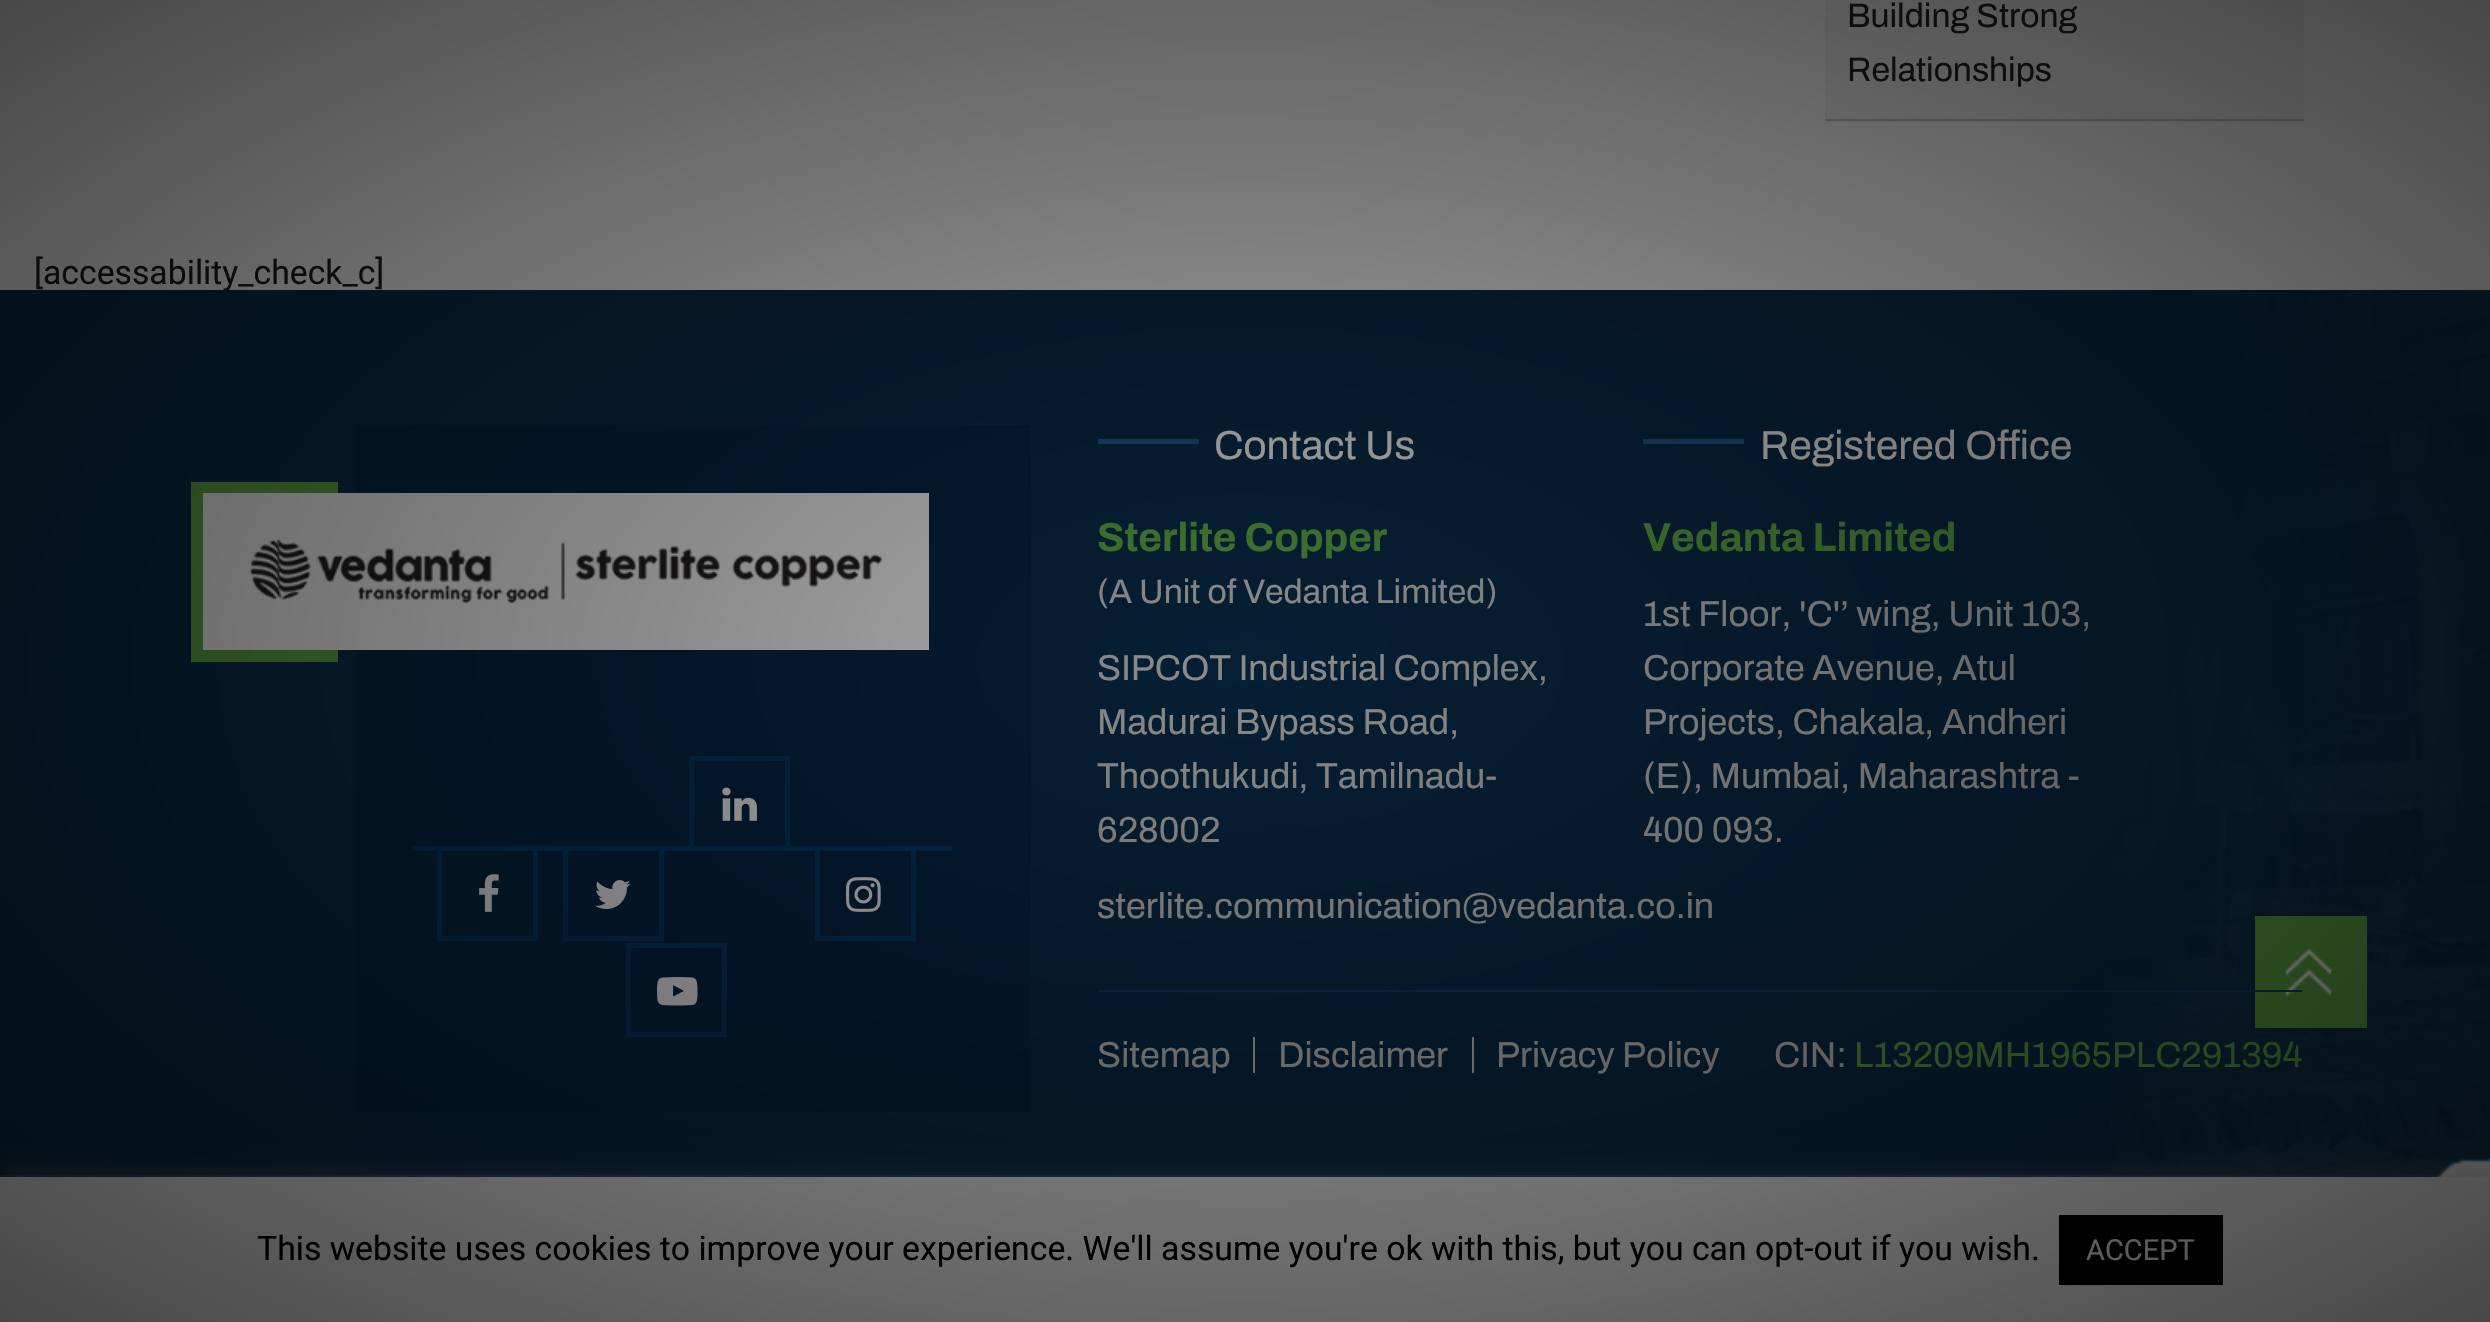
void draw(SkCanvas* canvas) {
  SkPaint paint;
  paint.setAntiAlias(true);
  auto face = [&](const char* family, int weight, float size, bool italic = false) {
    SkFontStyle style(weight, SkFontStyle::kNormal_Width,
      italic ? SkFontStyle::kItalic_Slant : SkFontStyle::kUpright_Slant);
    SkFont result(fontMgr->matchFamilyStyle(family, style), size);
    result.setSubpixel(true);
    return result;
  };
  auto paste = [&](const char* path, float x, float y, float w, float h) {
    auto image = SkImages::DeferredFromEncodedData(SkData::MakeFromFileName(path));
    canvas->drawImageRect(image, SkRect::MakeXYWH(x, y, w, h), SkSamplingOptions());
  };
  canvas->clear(0xffffffff);
  {
    const struct { float x, y, w, h; SkColor color; } items[] = {
      {1825, 0, 479, 122, 0xfff5f5f5},
      {1825, 119, 479, 2, 0xffcac7c7},
      {0, 1175, 2440, 2, 0xff14406b},
    };
    for (auto [x, y, w, h, color] : items) {
      paint.setColor(color);
      canvas->drawRect(SkRect::MakeXYWH(x, y, w, h), paint);
    }
  }
  auto f0 = face("Archivo", 400, 33.75f);
  paint.setColor(0xff232323);
  canvas->drawString("Building Strong", 1847, 27, f0, paint);
  canvas->drawString("Relationships", 1847, 81, f0, paint);
  auto f1 = face("Roboto", 400, 33.75f);
  paint.setColor(0xff1d1d1d);
  canvas->drawString("[accessability_check_c]", 34, 284, f1, paint);
  paint.setColor(0xff092d4c);
  canvas->drawRect(SkRect::MakeXYWH(0, 290, 2490, 885), paint);
  paste("img/1.png", 2110, 290, 380, 885);
  {
    const struct { float x, y, w, h; SkColor color; } items[] = {
      {356, 425, 675, 687, 0xff042746},
      {203, 493, 726, 157, 0xffffffff},
      {203, 482, 135, 11, 0xff61af47},
      {203, 650, 135, 12, 0xff61af47},
      {191, 482, 12, 180, 0xff61af47},
    };
    for (auto [x, y, w, h, color] : items) {
      paint.setColor(color);
      canvas->drawRect(SkRect::MakeXYWH(x, y, w, h), paint);
    }
  }
  paste("img/2.png", 249, 539, 633, 64);
  paint.setColor(0xff053967);
  canvas->drawRect(SkRect::MakeXYWH(412, 846, 540, 5), paint);
  paint.setStroke(true);
  paint.setStrokeWidth(5);
  canvas->drawRect(SkRect::MakeXYWH(691.5f, 758.5f, 96, 90), paint);
  paste("img/3.png", 722, 787, 35, 34);
  canvas->drawRect(SkRect::MakeXYWH(439.5f, 848.5f, 96, 90), paint);
  paste("img/4.png", 479, 874, 20, 38);
  canvas->drawRect(SkRect::MakeXYWH(565.5f, 848.5f, 96, 90), paint);
  paste("img/5.png", 595, 880, 36, 29);
  canvas->drawRect(SkRect::MakeXYWH(817.5f, 848.5f, 96, 90), paint);
  paste("img/6.png", 846, 877, 35, 35);
  canvas->drawRect(SkRect::MakeXYWH(628.5f, 945.5f, 96, 89), paint);
  paste("img/7.png", 657, 977, 41, 29);
  paint.setStroke(false);
  paint.setColor(0xff24598d);
  canvas->drawRect(SkRect::MakeXYWH(1098, 439, 101, 5), paint);
  auto f2 = face("Archivo", 400, 40.5f);
  paint.setColor(0xffffffff);
  canvas->drawString("Contact Us", 1214, 459, f2, paint);
  auto f3 = face("Archivo", 700, 40.5f);
  paint.setColor(0xff61af47);
  canvas->drawString("Sterlite Copper", 1097, 551, f3, paint);
  paint.setColor(0xffd0cfcf);
  canvas->drawString("(A Unit of Vedanta Limited)", 1097, 603, f0, paint);
  auto f4 = face("Archivo", 400, 36);
  {
    const struct { const char* s; float x, y; } items[] = {
      {"SIPCOT Industrial Complex,", 1097, 680},
      {"Madurai Bypass Road,", 1097, 734},
      {"Thoothukudi, Tamilnadu-", 1097, 788},
      {"628002", 1097, 842},
      {"sterlite.communication@vedanta.co.in", 1097, 918},
    };
    for (auto [s, x, y] : items) {
      canvas->drawString(s, x, y, f4, paint);
    }
  }
  paint.setColor(0xff24598d);
  canvas->drawRect(SkRect::MakeXYWH(1643, 439, 101, 5), paint);
  paint.setColor(0xffffffff);
  canvas->drawString("Registered Office", 1760, 459, f2, paint);
  paint.setColor(0xff61af47);
  canvas->drawString("Vedanta Limited", 1643, 551, f3, paint);
  paint.setColor(0xffd0cfcf);
  {
    const struct { const char* s; float x, y; } items[] = {
      {"1st Floor, 'C'’ wing, Unit 103,", 1643, 626},
      {"Corporate Avenue, Atul", 1643, 680},
      {"Projects, Chakala, Andheri", 1643, 734},
      {"(E), Mumbai, Maharashtra -", 1643, 788},
      {"400 093.", 1643, 842},
    };
    for (auto [s, x, y] : items) {
      canvas->drawString(s, x, y, f4, paint);
    }
  }
  canvas->drawRect(SkRect::MakeXYWH(1253, 1037, 2, 36), paint);
  canvas->drawString("Sitemap", 1097, 1067, f4, paint);
  canvas->drawRect(SkRect::MakeXYWH(1472, 1037, 2, 36), paint);
  {
    const struct { const char* s; float x, y; } items[] = {
      {"Disclaimer", 1278, 1067},
      {"Privacy Policy", 1496, 1067},
      {"CIN:", 1774, 1067},
    };
    for (auto [s, x, y] : items) {
      canvas->drawString(s, x, y, f4, paint);
    }
  }
  paint.setColor(0xff61af47);
  canvas->drawString("L13209MH1965PLC291394", 1854, 1067, f4, paint);
  canvas->drawRect(SkRect::MakeXYWH(2255, 916, 112, 112), paint);
  paste("img/8.png", 2285, 948, 47, 49);
  paint.setColor(0xff14406b);
  canvas->drawRect(SkRect::MakeXYWH(1098, 990, 1204, 2), paint);
  paste("img/9.png", 2434, 1158, 56, 19);
  paint.setColor(0x4dacabab);
  paint.setMaskFilter(SkMaskFilter::MakeBlur(kNormal_SkBlurStyle, 11));
  canvas->drawRect(SkRect::MakeXYWH(0, 1175, 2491, 146), paint);
  paint.setMaskFilter(nullptr);
  paint.setColor(0xffffffff);
  canvas->drawRect(SkRect::MakeXYWH(0, 1177, 2490, 145), paint);
  paint.setColor(0xff000000);
  canvas->drawString("This website uses cookies to improve your experience. We'll assume you're ok with this, but you can opt-out if you wish.", 257, 1260, f1, paint);
  canvas->drawRect(SkRect::MakeXYWH(2059, 1215, 164, 70), paint);
  auto f5 = face("Roboto", 400, 29);
  paint.setColor(0xffffffff);
  canvas->drawString("ACCEPT", 2086, 1260, f5, paint);
  {
    const SkColor colors[] = {0x52000000, 0xb8000000};
    const float stops[] = {0, 1};
    SkMatrix m = SkMatrix::Translate(1245, 662).preScale(1761, 936);
    paint.setShader(SkGradientShader::MakeRadial({0, 0}, 1, colors, stops, 2, SkTileMode::kClamp, 0, &m));
    paint.setAlpha(255);
  }
  canvas->drawRect(SkRect::MakeXYWH(0, 0, 2490, 1322), paint);
}
